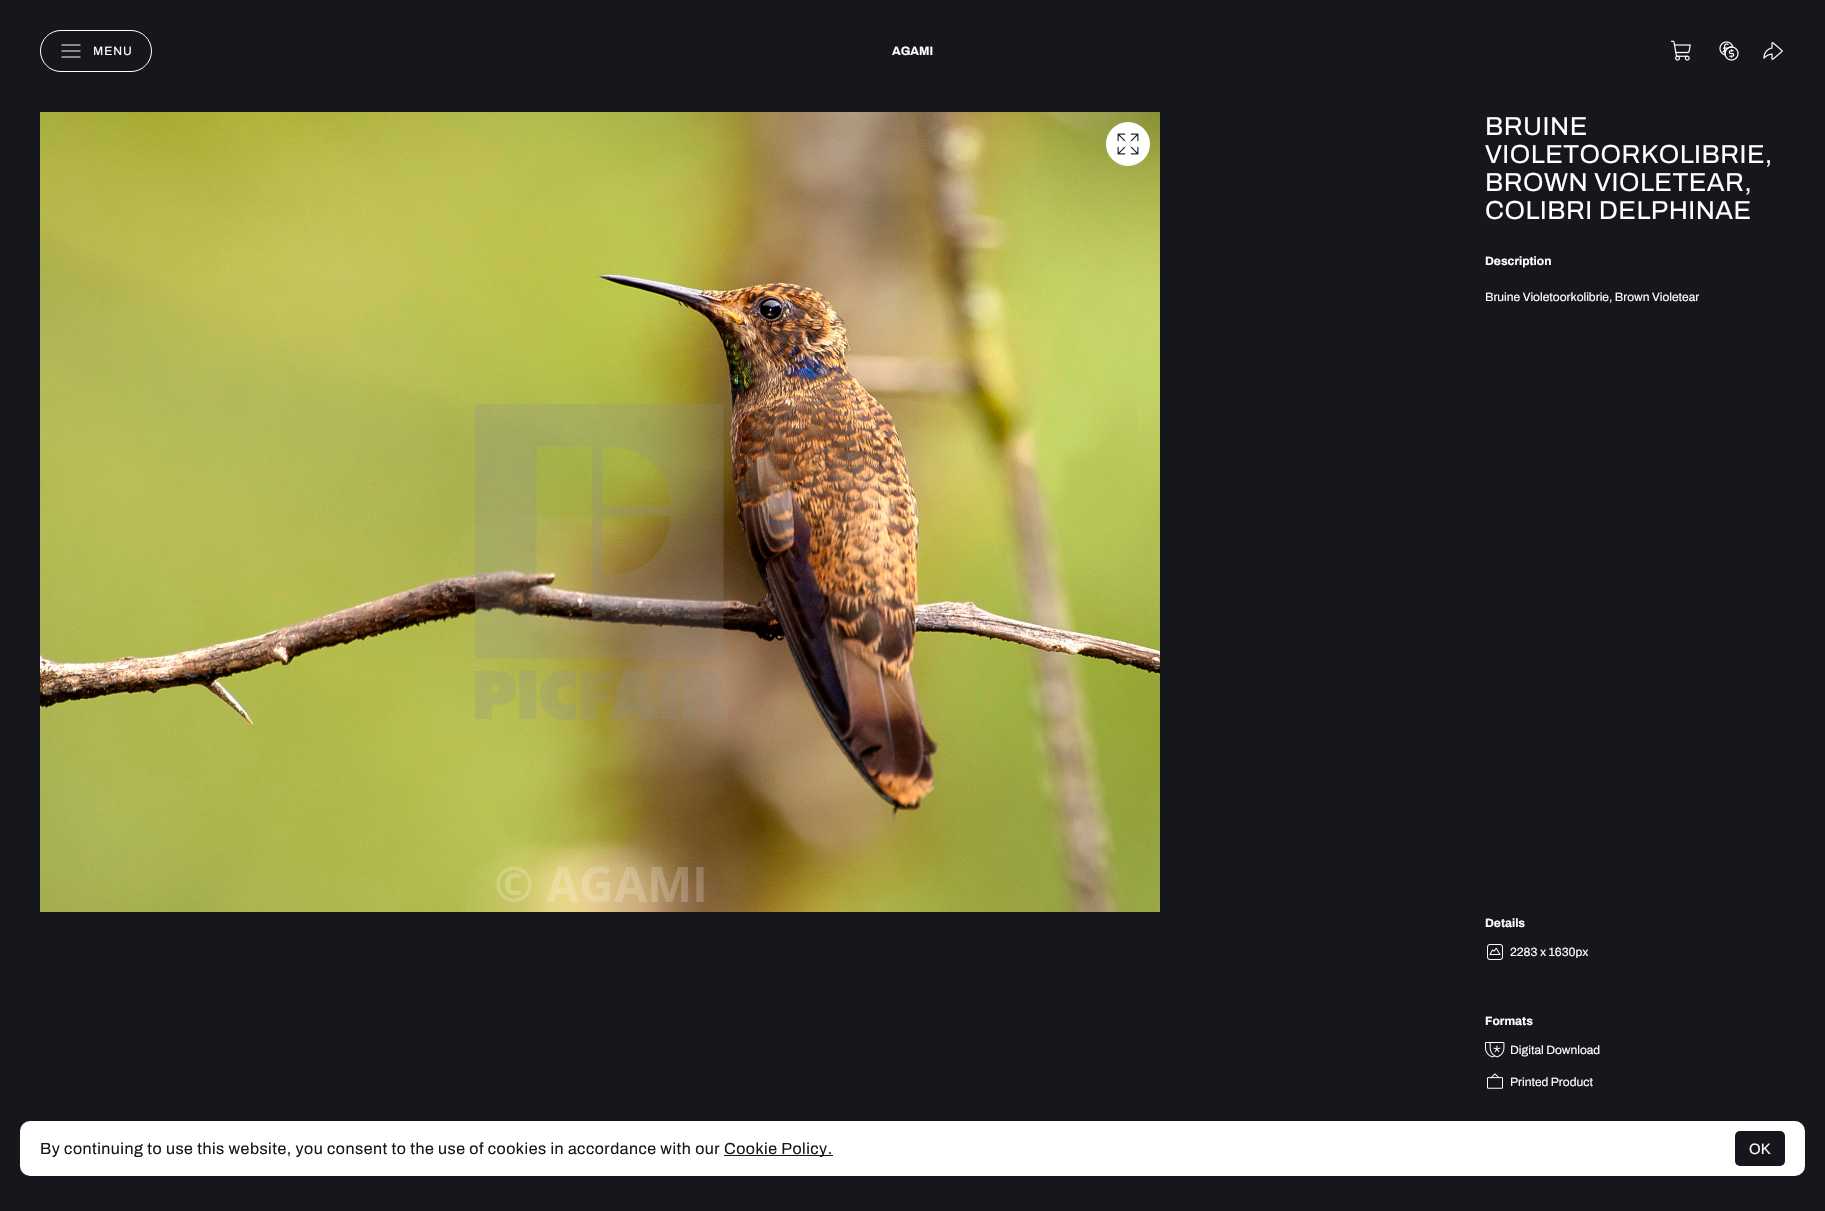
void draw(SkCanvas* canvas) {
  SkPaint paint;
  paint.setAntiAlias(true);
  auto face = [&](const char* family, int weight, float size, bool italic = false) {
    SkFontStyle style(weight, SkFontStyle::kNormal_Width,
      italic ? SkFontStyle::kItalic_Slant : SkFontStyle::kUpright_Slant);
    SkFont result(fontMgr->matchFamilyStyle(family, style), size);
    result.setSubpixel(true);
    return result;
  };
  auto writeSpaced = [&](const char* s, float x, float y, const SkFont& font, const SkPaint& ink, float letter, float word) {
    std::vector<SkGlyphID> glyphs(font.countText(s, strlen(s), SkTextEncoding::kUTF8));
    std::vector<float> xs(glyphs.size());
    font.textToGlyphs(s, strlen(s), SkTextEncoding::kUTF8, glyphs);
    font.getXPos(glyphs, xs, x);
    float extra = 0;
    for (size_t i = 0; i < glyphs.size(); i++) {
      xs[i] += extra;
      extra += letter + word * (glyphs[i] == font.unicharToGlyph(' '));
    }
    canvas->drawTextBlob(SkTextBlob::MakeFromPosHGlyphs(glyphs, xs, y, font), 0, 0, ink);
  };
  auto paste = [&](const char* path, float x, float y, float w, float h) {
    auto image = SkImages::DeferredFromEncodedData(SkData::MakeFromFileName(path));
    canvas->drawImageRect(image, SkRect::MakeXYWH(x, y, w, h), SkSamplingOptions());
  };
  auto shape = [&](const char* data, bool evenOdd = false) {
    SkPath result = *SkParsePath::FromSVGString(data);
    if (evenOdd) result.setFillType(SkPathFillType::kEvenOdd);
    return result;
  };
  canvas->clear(0xff16161d);
  paint.setStroke(true);
  paint.setStrokeWidth(1);
  paint.setColor(0xffffffff);
  canvas->drawRoundRect(SkRect::MakeXYWH(40.5f, 30.5f, 111, 41), 20.5f, 20.5f, paint);
  paint.setStrokeWidth(1.2f);
  paint.setStrokeCap(SkPaint::kRound_Cap);
  paint.setStrokeJoin(SkPaint::kRound_Join);
  canvas->drawPath(shape("M62 51H80M62 45H80M62 57H80"), paint);
  paste("img/1.png", 1670, 40, 21, 21);
  paste("img/2.png", 1719, 41, 20, 20);
  paste("img/3.png", 1763, 42, 20, 18);
  paste("img/4.png", 40, 112, 1120, 800);
  paint.setStroke(false);
  canvas->drawCircle(1128, 144, 22, paint);
  paste("img/5.png", 1117, 133, 22, 22);
  paste("img/6.png", 1487, 944, 16, 16);
  paste("img/7.png", 1485, 1042, 20, 16);
  paste("img/8.png", 1487, 1073, 16, 16);
  canvas->drawRoundRect(SkRect::MakeXYWH(20, 1121, 1785, 55), 10, 10, paint);
  paint.setColor(0xff16161d);
  canvas->drawRect(SkRect::MakeXYWH(724, 1155, 109, 1), paint);
  canvas->drawRoundRect(SkRect::MakeXYWH(1735, 1131, 50, 35), 5, 5, paint);
  auto f0 = face("Archivo", 400, 12);
  paint.setColor(0xffffffff);
  writeSpaced("MENU", 93, 55, f0, paint, 1, 0);
  auto f1 = face("Archivo", 700, 12);
  canvas->drawString("AGAMI", 892, 55, f1, paint);
  auto f2 = face("Archivo", 400, 26);
  {
    const struct { const char* s; float x, y; } items[] = {
      {"BRUINE", 1485, 135},
      {"VIOLETOORKOLIBRIE,", 1485, 163},
      {"BROWN VIOLETEAR,", 1485, 191},
      {"COLIBRI DELPHINAE", 1485, 219},
    };
    for (auto [s, x, y] : items) {
      writeSpaced(s, x, y, f2, paint, 0.5f, 0);
    }
  }
  canvas->drawString("Description", 1485, 265, f1, paint);
  canvas->drawString("Bruine Violetoorkolibrie, Brown Violetear", 1485, 301, f0, paint);
  canvas->drawString("Details", 1485, 927, f1, paint);
  canvas->drawString("2283 x 1630px", 1510, 956, f0, paint);
  canvas->drawString("Formats", 1485, 1025, f1, paint);
  canvas->drawString("Digital Download", 1510, 1054, f0, paint);
  canvas->drawString("Printed Product", 1510, 1086, f0, paint);
  auto f3 = face("Archivo", 400, 16);
  paint.setColor(0xff16161d);
  writeSpaced("By continuing to use this website, you consent to the use of cookies in accordance with our", 40, 1154, f3, paint, 0.5f, 0);
  writeSpaced("Cookie Policy.", 724, 1154, f3, paint, 0.5f, 0);
  auto f4 = face("Liberation Sans", 400, 15);
  paint.setColor(0xffffffff);
  canvas->drawString("OK", 1749, 1154, f4, paint);
}
